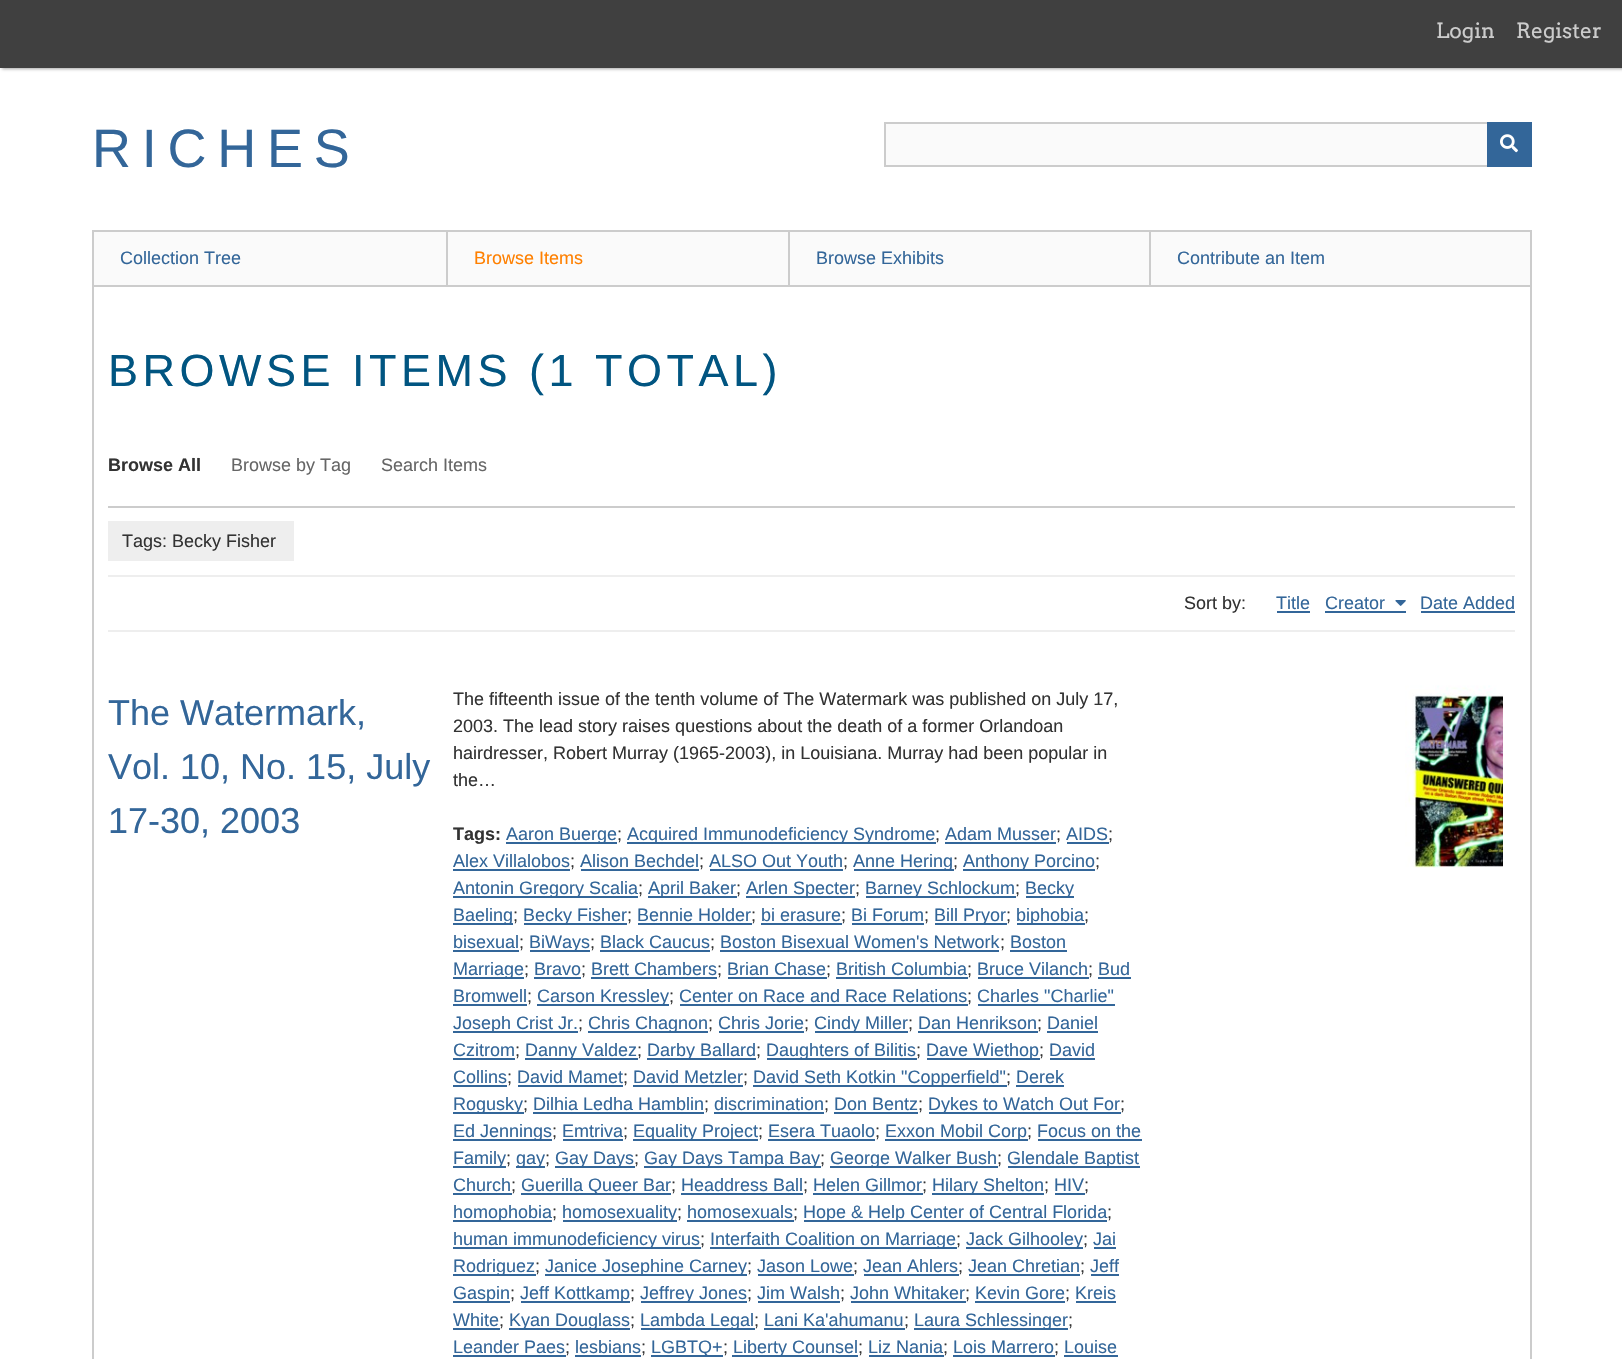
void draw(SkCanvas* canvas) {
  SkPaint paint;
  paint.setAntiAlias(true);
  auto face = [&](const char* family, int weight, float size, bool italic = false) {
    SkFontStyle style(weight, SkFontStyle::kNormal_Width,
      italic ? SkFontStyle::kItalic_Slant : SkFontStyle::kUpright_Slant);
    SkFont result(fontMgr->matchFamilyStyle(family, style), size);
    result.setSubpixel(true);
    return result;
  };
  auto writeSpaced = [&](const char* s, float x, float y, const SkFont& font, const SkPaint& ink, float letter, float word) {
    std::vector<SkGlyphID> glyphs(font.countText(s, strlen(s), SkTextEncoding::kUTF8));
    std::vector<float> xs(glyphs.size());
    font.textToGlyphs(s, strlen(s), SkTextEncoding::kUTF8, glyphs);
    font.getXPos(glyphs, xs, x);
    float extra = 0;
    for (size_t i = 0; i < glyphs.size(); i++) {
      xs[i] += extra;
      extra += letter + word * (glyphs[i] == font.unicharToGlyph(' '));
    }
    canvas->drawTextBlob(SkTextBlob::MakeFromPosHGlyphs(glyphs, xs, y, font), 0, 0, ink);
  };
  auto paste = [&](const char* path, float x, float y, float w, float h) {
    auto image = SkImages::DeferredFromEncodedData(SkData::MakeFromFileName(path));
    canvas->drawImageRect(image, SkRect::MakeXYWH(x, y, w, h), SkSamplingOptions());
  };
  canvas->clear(0xffffffff);
  paint.setColor(0x59000000);
  paint.setMaskFilter(SkMaskFilter::MakeBlur(kNormal_SkBlurStyle, 1.5f));
  canvas->drawRect(SkRect::MakeXYWH(2, 2, 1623, 67), paint);
  paint.setMaskFilter(nullptr);
  paint.setColor(0xff404040);
  canvas->drawRect(SkRect::MakeXYWH(0, 0, 1622, 68), paint);
  paint.setColor(0xfffafafa);
  canvas->drawRect(SkRect::MakeXYWH(886, 124, 601, 41), paint);
  paint.setStroke(true);
  paint.setStrokeWidth(2);
  paint.setColor(0xffcccccc);
  canvas->drawRect(SkRect::MakeXYWH(885, 123, 646, 43), paint);
  paint.setStroke(false);
  paint.setColor(0xff336699);
  canvas->drawRect(SkRect::MakeXYWH(1487, 122, 45, 45), paint);
  paste("img/1.png", 1500, 134, 18, 19);
  {
    const struct { float x, y, w, h; SkColor color; } items[] = {
      {1530, 230, 2, 55, 0xffcccccc},
      {94, 232, 352, 53, 0xfffafafa},
      {92, 230, 354, 2, 0xffcccccc},
      {92, 230, 2, 55, 0xffcccccc},
      {448, 232, 340, 53, 0xfffafafa},
      {446, 230, 1084, 2, 0xffcccccc},
      {446, 230, 2, 55, 0xffcccccc},
      {790, 232, 359, 53, 0xfffafafa},
      {788, 230, 2, 55, 0xffcccccc},
      {1151, 232, 379, 53, 0xfffafafa},
      {1149, 230, 2, 55, 0xffcccccc},
    };
    for (auto [x, y, w, h, color] : items) {
      paint.setColor(color);
      canvas->drawRect(SkRect::MakeXYWH(x, y, w, h), paint);
    }
  }
  paint.setStroke(true);
  canvas->drawRect(SkRect::MakeXYWH(93, 286, 1438, 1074), paint);
  paint.setStroke(false);
  {
    const struct { float x, y, w, h; SkColor color; } items[] = {
      {108, 506, 1407, 2, 0xffcccccc},
      {108, 575, 1407, 2, 0xffeeeeee},
      {108, 521, 186, 40, 0xffeeeeee},
      {1277, 611, 33, 2, 0xff336699},
      {1325, 611, 81, 2, 0xff336699},
    };
    for (auto [x, y, w, h, color] : items) {
      paint.setColor(color);
      canvas->drawRect(SkRect::MakeXYWH(x, y, w, h), paint);
    }
  }
  paste("img/2.png", 1395, 600, 11, 6);
  canvas->drawRect(SkRect::MakeXYWH(1421, 611, 94, 2), paint);
  paint.setColor(0xffeeeeee);
  canvas->drawRect(SkRect::MakeXYWH(108, 630, 1407, 2), paint);
  paste("img/3.png", 1405, 685, 98, 183);
  {
    const struct { float x, y, w, h; SkColor color; } items[] = {
      {506, 842, 111, 2, 0xff336699},
      {627, 842, 309, 2, 0xff336699},
      {945, 842, 111, 2, 0xff336699},
      {1067, 842, 42, 2, 0xff336699},
      {453, 869, 117, 2, 0xff336699},
      {581, 869, 118, 2, 0xff336699},
      {710, 869, 133, 2, 0xff336699},
      {854, 869, 100, 2, 0xff336699},
      {963, 869, 132, 2, 0xff336699},
      {453, 896, 185, 2, 0xff336699},
      {648, 896, 89, 2, 0xff336699},
      {746, 896, 109, 2, 0xff336699},
      {866, 896, 150, 2, 0xff336699},
      {1026, 896, 48, 2, 0xff336699},
      {453, 923, 60, 2, 0xff336699},
      {524, 923, 103, 2, 0xff336699},
      {638, 923, 114, 2, 0xff336699},
      {761, 923, 81, 2, 0xff336699},
      {852, 923, 72, 2, 0xff336699},
      {935, 923, 72, 2, 0xff336699},
      {1017, 923, 68, 2, 0xff336699},
      {453, 950, 66, 2, 0xff336699},
      {530, 950, 60, 2, 0xff336699},
      {600, 950, 110, 2, 0xff336699},
      {720, 950, 279, 2, 0xff336699},
      {1010, 950, 57, 2, 0xff336699},
      {453, 977, 71, 2, 0xff336699},
      {534, 977, 47, 2, 0xff336699},
      {591, 977, 126, 2, 0xff336699},
      {728, 977, 99, 2, 0xff336699},
      {836, 977, 132, 2, 0xff336699},
      {978, 977, 111, 2, 0xff336699},
      {1098, 977, 33, 2, 0xff336699},
      {453, 1004, 74, 2, 0xff336699},
      {537, 1004, 132, 2, 0xff336699},
      {680, 1004, 288, 2, 0xff336699},
      {978, 1004, 137, 2, 0xff336699},
      {453, 1031, 125, 2, 0xff336699},
      {588, 1031, 120, 2, 0xff336699},
      {719, 1031, 85, 2, 0xff336699},
      {815, 1031, 93, 2, 0xff336699},
      {918, 1031, 120, 2, 0xff336699},
      {1047, 1031, 51, 2, 0xff336699},
      {453, 1058, 62, 2, 0xff336699},
      {525, 1058, 113, 2, 0xff336699},
      {647, 1058, 109, 2, 0xff336699},
      {767, 1058, 150, 2, 0xff336699},
      {927, 1058, 113, 2, 0xff336699},
      {1050, 1058, 45, 2, 0xff336699},
      {453, 1085, 54, 2, 0xff336699},
      {518, 1085, 105, 2, 0xff336699},
      {633, 1085, 110, 2, 0xff336699},
      {753, 1085, 254, 2, 0xff336699},
      {1016, 1085, 48, 2, 0xff336699},
      {453, 1112, 71, 2, 0xff336699},
      {533, 1112, 171, 2, 0xff336699},
      {714, 1112, 110, 2, 0xff336699},
      {834, 1112, 84, 2, 0xff336699},
      {929, 1112, 192, 2, 0xff336699},
      {453, 1139, 99, 2, 0xff336699},
      {563, 1139, 60, 2, 0xff336699},
      {633, 1139, 125, 2, 0xff336699},
      {768, 1139, 107, 2, 0xff336699},
      {885, 1139, 143, 2, 0xff336699},
      {1038, 1139, 104, 2, 0xff336699},
      {453, 1166, 53, 2, 0xff336699},
      {516, 1166, 29, 2, 0xff336699},
      {555, 1166, 80, 2, 0xff336699},
      {644, 1166, 177, 2, 0xff336699},
      {830, 1166, 168, 2, 0xff336699},
      {1008, 1166, 132, 2, 0xff336699},
      {453, 1193, 59, 2, 0xff336699},
      {521, 1193, 150, 2, 0xff336699},
      {681, 1193, 122, 2, 0xff336699},
      {813, 1193, 110, 2, 0xff336699},
      {932, 1193, 112, 2, 0xff336699},
      {1055, 1193, 30, 2, 0xff336699},
      {453, 1220, 99, 2, 0xff336699},
      {563, 1220, 114, 2, 0xff336699},
      {687, 1220, 107, 2, 0xff336699},
      {804, 1220, 303, 2, 0xff336699},
      {453, 1247, 248, 2, 0xff336699},
      {710, 1247, 247, 2, 0xff336699},
      {966, 1247, 117, 2, 0xff336699},
      {1094, 1247, 22, 2, 0xff336699},
      {453, 1274, 83, 2, 0xff336699},
      {545, 1274, 202, 2, 0xff336699},
      {758, 1274, 96, 2, 0xff336699},
      {864, 1274, 95, 2, 0xff336699},
      {969, 1274, 111, 2, 0xff336699},
      {1091, 1274, 28, 2, 0xff336699},
      {453, 1301, 57, 2, 0xff336699},
      {521, 1301, 109, 2, 0xff336699},
      {641, 1301, 106, 2, 0xff336699},
      {758, 1301, 82, 2, 0xff336699},
      {851, 1301, 115, 2, 0xff336699},
      {975, 1301, 90, 2, 0xff336699},
      {1076, 1301, 40, 2, 0xff336699},
      {453, 1328, 47, 2, 0xff336699},
      {509, 1328, 121, 2, 0xff336699},
      {641, 1328, 114, 2, 0xff336699},
      {764, 1328, 141, 2, 0xff336699},
      {914, 1328, 154, 2, 0xff336699},
      {453, 1355, 113, 2, 0xff336699},
      {575, 1355, 66, 2, 0xff336699},
      {651, 1355, 72, 2, 0xff336699},
      {732, 1355, 126, 2, 0xff336699},
      {869, 1355, 75, 2, 0xff336699},
      {953, 1355, 102, 2, 0xff336699},
      {1064, 1355, 54, 2, 0xff336699},
    };
    for (auto [x, y, w, h, color] : items) {
      paint.setColor(color);
      canvas->drawRect(SkRect::MakeXYWH(x, y, w, h), paint);
    }
  }
  auto f0 = face("Arvo", 400, 21);
  paint.setColor(0xffcccccc);
  canvas->drawString("Login", 1436, 38, f0, paint);
  canvas->drawString("Register", 1516, 38, f0, paint);
  auto f1 = face("Liberation Sans", 400, 54);
  paint.setColor(0xff336699);
  writeSpaced("RICHES", 92, 167, f1, paint, 10.75f, 0);
  auto f2 = face("Liberation Sans", 400, 18);
  canvas->drawString("Collection Tree", 120, 264, f2, paint);
  paint.setColor(0xffff8000);
  canvas->drawString("Browse Items", 474, 264, f2, paint);
  paint.setColor(0xff336699);
  canvas->drawString("Browse Exhibits", 816, 264, f2, paint);
  canvas->drawString("Contribute an Item", 1177, 264, f2, paint);
  auto f3 = face("Liberation Sans", 400, 45);
  paint.setColor(0xff015581);
  writeSpaced("BROWSE ITEMS (1 TOTAL)", 108, 386, f3, paint, 4.5f, 0);
  auto f4 = face("Liberation Sans", 700, 18);
  paint.setColor(0xff333333);
  canvas->drawString("Browse All", 108, 471, f4, paint);
  paint.setColor(0xff666666);
  canvas->drawString("Browse by Tag", 231, 471, f2, paint);
  canvas->drawString("Search Items", 381, 471, f2, paint);
  paint.setColor(0xff333333);
  canvas->drawString("Tags: Becky Fisher", 122, 547, f2, paint);
  canvas->drawString("Sort by:", 1184, 609, f2, paint);
  paint.setColor(0xff336699);
  {
    const struct { const char* s; float x, y; } items[] = {
      {"Title", 1276, 609},
      {"Creator", 1325, 609},
      {"Date Added", 1420, 609},
    };
    for (auto [s, x, y] : items) {
      canvas->drawString(s, x, y, f2, paint);
    }
  }
  auto f5 = face("Liberation Sans", 400, 36);
  {
    const struct { const char* s; float x, y; } items[] = {
      {"The Watermark,", 108, 725},
      {"Vol. 10, No. 15, July", 108, 779},
      {"17-30, 2003", 108, 833},
    };
    for (auto [s, x, y] : items) {
      canvas->drawString(s, x, y, f5, paint);
    }
  }
  paint.setColor(0xff333333);
  {
    const struct { const char* s; float x, y; } items[] = {
      {"The fifteenth issue of the tenth volume of The Watermark was published on July 17,", 453, 705},
      {"2003. The lead story raises questions about the death of a former Orlandoan", 453, 732},
      {"hairdresser, Robert Murray (1965-2003), in Louisiana. Murray had been popular in", 453, 759},
      {"the…", 453, 786},
    };
    for (auto [s, x, y] : items) {
      canvas->drawString(s, x, y, f2, paint);
    }
  }
  canvas->drawString("Tags:", 453, 840, f4, paint);
  paint.setColor(0xff336699);
  canvas->drawString("Aaron Buerge", 506, 840, f2, paint);
  paint.setColor(0xff333333);
  canvas->drawString(";", 617, 840, f2, paint);
  paint.setColor(0xff336699);
  canvas->drawString("Acquired Immunodeficiency Syndrome", 627, 840, f2, paint);
  paint.setColor(0xff333333);
  canvas->drawString(";", 935, 840, f2, paint);
  paint.setColor(0xff336699);
  canvas->drawString("Adam Musser", 945, 840, f2, paint);
  paint.setColor(0xff333333);
  canvas->drawString(";", 1056, 840, f2, paint);
  paint.setColor(0xff336699);
  canvas->drawString("AIDS", 1066, 840, f2, paint);
  paint.setColor(0xff333333);
  canvas->drawString(";", 1108, 840, f2, paint);
  paint.setColor(0xff336699);
  canvas->drawString("Alex Villalobos", 453, 867, f2, paint);
  paint.setColor(0xff333333);
  canvas->drawString(";", 570, 867, f2, paint);
  paint.setColor(0xff336699);
  canvas->drawString("Alison Bechdel", 580, 867, f2, paint);
  paint.setColor(0xff333333);
  canvas->drawString(";", 699, 867, f2, paint);
  paint.setColor(0xff336699);
  canvas->drawString("ALSO Out Youth", 709, 867, f2, paint);
  paint.setColor(0xff333333);
  canvas->drawString(";", 843, 867, f2, paint);
  paint.setColor(0xff336699);
  canvas->drawString("Anne Hering", 853, 867, f2, paint);
  paint.setColor(0xff333333);
  canvas->drawString(";", 953, 867, f2, paint);
  paint.setColor(0xff336699);
  canvas->drawString("Anthony Porcino", 963, 867, f2, paint);
  paint.setColor(0xff333333);
  canvas->drawString(";", 1095, 867, f2, paint);
  paint.setColor(0xff336699);
  canvas->drawString("Antonin Gregory Scalia", 453, 894, f2, paint);
  paint.setColor(0xff333333);
  canvas->drawString(";", 638, 894, f2, paint);
  paint.setColor(0xff336699);
  canvas->drawString("April Baker", 648, 894, f2, paint);
  paint.setColor(0xff333333);
  canvas->drawString(";", 736, 894, f2, paint);
  paint.setColor(0xff336699);
  canvas->drawString("Arlen Specter", 746, 894, f2, paint);
  paint.setColor(0xff333333);
  canvas->drawString(";", 855, 894, f2, paint);
  paint.setColor(0xff336699);
  canvas->drawString("Barney Schlockum", 865, 894, f2, paint);
  paint.setColor(0xff333333);
  canvas->drawString(";", 1015, 894, f2, paint);
  paint.setColor(0xff336699);
  canvas->drawString("Becky", 1025, 894, f2, paint);
  canvas->drawString("Baeling", 453, 921, f2, paint);
  paint.setColor(0xff333333);
  canvas->drawString(";", 513, 921, f2, paint);
  paint.setColor(0xff336699);
  canvas->drawString("Becky Fisher", 523, 921, f2, paint);
  paint.setColor(0xff333333);
  canvas->drawString(";", 627, 921, f2, paint);
  paint.setColor(0xff336699);
  canvas->drawString("Bennie Holder", 637, 921, f2, paint);
  paint.setColor(0xff333333);
  canvas->drawString(";", 751, 921, f2, paint);
  paint.setColor(0xff336699);
  canvas->drawString("bi erasure", 761, 921, f2, paint);
  paint.setColor(0xff333333);
  canvas->drawString(";", 841, 921, f2, paint);
  paint.setColor(0xff336699);
  canvas->drawString("Bi Forum", 851, 921, f2, paint);
  paint.setColor(0xff333333);
  canvas->drawString(";", 924, 921, f2, paint);
  paint.setColor(0xff336699);
  canvas->drawString("Bill Pryor", 934, 921, f2, paint);
  paint.setColor(0xff333333);
  canvas->drawString(";", 1006, 921, f2, paint);
  paint.setColor(0xff336699);
  canvas->drawString("biphobia", 1016, 921, f2, paint);
  paint.setColor(0xff333333);
  canvas->drawString(";", 1084, 921, f2, paint);
  paint.setColor(0xff336699);
  canvas->drawString("bisexual", 453, 948, f2, paint);
  paint.setColor(0xff333333);
  canvas->drawString(";", 519, 948, f2, paint);
  paint.setColor(0xff336699);
  canvas->drawString("BiWays", 529, 948, f2, paint);
  paint.setColor(0xff333333);
  canvas->drawString(";", 590, 948, f2, paint);
  paint.setColor(0xff336699);
  canvas->drawString("Black Caucus", 600, 948, f2, paint);
  paint.setColor(0xff333333);
  canvas->drawString(";", 710, 948, f2, paint);
  paint.setColor(0xff336699);
  canvas->drawString("Boston Bisexual Women's Network", 720, 948, f2, paint);
  paint.setColor(0xff333333);
  canvas->drawString(";", 1000, 948, f2, paint);
  paint.setColor(0xff336699);
  canvas->drawString("Boston", 1010, 948, f2, paint);
  canvas->drawString("Marriage", 453, 975, f2, paint);
  paint.setColor(0xff333333);
  canvas->drawString(";", 524, 975, f2, paint);
  paint.setColor(0xff336699);
  canvas->drawString("Bravo", 534, 975, f2, paint);
  paint.setColor(0xff333333);
  canvas->drawString(";", 581, 975, f2, paint);
  paint.setColor(0xff336699);
  canvas->drawString("Brett Chambers", 591, 975, f2, paint);
  paint.setColor(0xff333333);
  canvas->drawString(";", 717, 975, f2, paint);
  paint.setColor(0xff336699);
  canvas->drawString("Brian Chase", 727, 975, f2, paint);
  paint.setColor(0xff333333);
  canvas->drawString(";", 826, 975, f2, paint);
  paint.setColor(0xff336699);
  canvas->drawString("British Columbia", 836, 975, f2, paint);
  paint.setColor(0xff333333);
  canvas->drawString(";", 967, 975, f2, paint);
  paint.setColor(0xff336699);
  canvas->drawString("Bruce Vilanch", 977, 975, f2, paint);
  paint.setColor(0xff333333);
  canvas->drawString(";", 1088, 975, f2, paint);
  paint.setColor(0xff336699);
  canvas->drawString("Bud", 1098, 975, f2, paint);
  canvas->drawString("Bromwell", 453, 1002, f2, paint);
  paint.setColor(0xff333333);
  canvas->drawString(";", 527, 1002, f2, paint);
  paint.setColor(0xff336699);
  canvas->drawString("Carson Kressley", 537, 1002, f2, paint);
  paint.setColor(0xff333333);
  canvas->drawString(";", 669, 1002, f2, paint);
  paint.setColor(0xff336699);
  canvas->drawString("Center on Race and Race Relations", 679, 1002, f2, paint);
  paint.setColor(0xff333333);
  canvas->drawString(";", 967, 1002, f2, paint);
  paint.setColor(0xff336699);
  canvas->drawString("Charles \"Charlie\"", 977, 1002, f2, paint);
  canvas->drawString("Joseph Crist Jr.", 453, 1029, f2, paint);
  paint.setColor(0xff333333);
  canvas->drawString(";", 578, 1029, f2, paint);
  paint.setColor(0xff336699);
  canvas->drawString("Chris Chagnon", 588, 1029, f2, paint);
  paint.setColor(0xff333333);
  canvas->drawString(";", 708, 1029, f2, paint);
  paint.setColor(0xff336699);
  canvas->drawString("Chris Jorie", 718, 1029, f2, paint);
  paint.setColor(0xff333333);
  canvas->drawString(";", 804, 1029, f2, paint);
  paint.setColor(0xff336699);
  canvas->drawString("Cindy Miller", 814, 1029, f2, paint);
  paint.setColor(0xff333333);
  canvas->drawString(";", 908, 1029, f2, paint);
  paint.setColor(0xff336699);
  canvas->drawString("Dan Henrikson", 918, 1029, f2, paint);
  paint.setColor(0xff333333);
  canvas->drawString(";", 1037, 1029, f2, paint);
  paint.setColor(0xff336699);
  canvas->drawString("Daniel", 1047, 1029, f2, paint);
  canvas->drawString("Czitrom", 453, 1056, f2, paint);
  paint.setColor(0xff333333);
  canvas->drawString(";", 515, 1056, f2, paint);
  paint.setColor(0xff336699);
  canvas->drawString("Danny Valdez", 525, 1056, f2, paint);
  paint.setColor(0xff333333);
  canvas->drawString(";", 637, 1056, f2, paint);
  paint.setColor(0xff336699);
  canvas->drawString("Darby Ballard", 647, 1056, f2, paint);
  paint.setColor(0xff333333);
  canvas->drawString(";", 756, 1056, f2, paint);
  paint.setColor(0xff336699);
  canvas->drawString("Daughters of Bilitis", 766, 1056, f2, paint);
  paint.setColor(0xff333333);
  canvas->drawString(";", 916, 1056, f2, paint);
  paint.setColor(0xff336699);
  canvas->drawString("Dave Wiethop", 926, 1056, f2, paint);
  paint.setColor(0xff333333);
  canvas->drawString(";", 1039, 1056, f2, paint);
  paint.setColor(0xff336699);
  canvas->drawString("David", 1049, 1056, f2, paint);
  canvas->drawString("Collins", 453, 1083, f2, paint);
  paint.setColor(0xff333333);
  canvas->drawString(";", 507, 1083, f2, paint);
  paint.setColor(0xff336699);
  canvas->drawString("David Mamet", 517, 1083, f2, paint);
  paint.setColor(0xff333333);
  canvas->drawString(";", 623, 1083, f2, paint);
  paint.setColor(0xff336699);
  canvas->drawString("David Metzler", 633, 1083, f2, paint);
  paint.setColor(0xff333333);
  canvas->drawString(";", 743, 1083, f2, paint);
  paint.setColor(0xff336699);
  canvas->drawString("David Seth Kotkin \"Copperfield\"", 753, 1083, f2, paint);
  paint.setColor(0xff333333);
  canvas->drawString(";", 1006, 1083, f2, paint);
  paint.setColor(0xff336699);
  canvas->drawString("Derek", 1016, 1083, f2, paint);
  canvas->drawString("Rogusky", 453, 1110, f2, paint);
  paint.setColor(0xff333333);
  canvas->drawString(";", 523, 1110, f2, paint);
  paint.setColor(0xff336699);
  canvas->drawString("Dilhia Ledha Hamblin", 533, 1110, f2, paint);
  paint.setColor(0xff333333);
  canvas->drawString(";", 704, 1110, f2, paint);
  paint.setColor(0xff336699);
  canvas->drawString("discrimination", 714, 1110, f2, paint);
  paint.setColor(0xff333333);
  canvas->drawString(";", 824, 1110, f2, paint);
  paint.setColor(0xff336699);
  canvas->drawString("Don Bentz", 834, 1110, f2, paint);
  paint.setColor(0xff333333);
  canvas->drawString(";", 918, 1110, f2, paint);
  paint.setColor(0xff336699);
  canvas->drawString("Dykes to Watch Out For", 928, 1110, f2, paint);
  paint.setColor(0xff333333);
  canvas->drawString(";", 1120, 1110, f2, paint);
  paint.setColor(0xff336699);
  canvas->drawString("Ed Jennings", 453, 1137, f2, paint);
  paint.setColor(0xff333333);
  canvas->drawString(";", 552, 1137, f2, paint);
  paint.setColor(0xff336699);
  canvas->drawString("Emtriva", 562, 1137, f2, paint);
  paint.setColor(0xff333333);
  canvas->drawString(";", 623, 1137, f2, paint);
  paint.setColor(0xff336699);
  canvas->drawString("Equality Project", 633, 1137, f2, paint);
  paint.setColor(0xff333333);
  canvas->drawString(";", 758, 1137, f2, paint);
  paint.setColor(0xff336699);
  canvas->drawString("Esera Tuaolo", 768, 1137, f2, paint);
  paint.setColor(0xff333333);
  canvas->drawString(";", 875, 1137, f2, paint);
  paint.setColor(0xff336699);
  canvas->drawString("Exxon Mobil Corp", 885, 1137, f2, paint);
  paint.setColor(0xff333333);
  canvas->drawString(";", 1027, 1137, f2, paint);
  paint.setColor(0xff336699);
  canvas->drawString("Focus on the", 1037, 1137, f2, paint);
  canvas->drawString("Family", 453, 1164, f2, paint);
  paint.setColor(0xff333333);
  canvas->drawString(";", 506, 1164, f2, paint);
  paint.setColor(0xff336699);
  canvas->drawString("gay", 516, 1164, f2, paint);
  paint.setColor(0xff333333);
  canvas->drawString(";", 545, 1164, f2, paint);
  paint.setColor(0xff336699);
  canvas->drawString("Gay Days", 555, 1164, f2, paint);
  paint.setColor(0xff333333);
  canvas->drawString(";", 634, 1164, f2, paint);
  paint.setColor(0xff336699);
  canvas->drawString("Gay Days Tampa Bay", 644, 1164, f2, paint);
  paint.setColor(0xff333333);
  canvas->drawString(";", 820, 1164, f2, paint);
  paint.setColor(0xff336699);
  canvas->drawString("George Walker Bush", 830, 1164, f2, paint);
  paint.setColor(0xff333333);
  canvas->drawString(";", 997, 1164, f2, paint);
  paint.setColor(0xff336699);
  canvas->drawString("Glendale Baptist", 1007, 1164, f2, paint);
  canvas->drawString("Church", 453, 1191, f2, paint);
  paint.setColor(0xff333333);
  canvas->drawString(";", 511, 1191, f2, paint);
  paint.setColor(0xff336699);
  canvas->drawString("Guerilla Queer Bar", 521, 1191, f2, paint);
  paint.setColor(0xff333333);
  canvas->drawString(";", 671, 1191, f2, paint);
  paint.setColor(0xff336699);
  canvas->drawString("Headdress Ball", 681, 1191, f2, paint);
  paint.setColor(0xff333333);
  canvas->drawString(";", 803, 1191, f2, paint);
  paint.setColor(0xff336699);
  canvas->drawString("Helen Gillmor", 813, 1191, f2, paint);
  paint.setColor(0xff333333);
  canvas->drawString(";", 922, 1191, f2, paint);
  paint.setColor(0xff336699);
  canvas->drawString("Hilary Shelton", 932, 1191, f2, paint);
  paint.setColor(0xff333333);
  canvas->drawString(";", 1044, 1191, f2, paint);
  paint.setColor(0xff336699);
  canvas->drawString("HIV", 1054, 1191, f2, paint);
  paint.setColor(0xff333333);
  canvas->drawString(";", 1084, 1191, f2, paint);
  paint.setColor(0xff336699);
  canvas->drawString("homophobia", 453, 1218, f2, paint);
  paint.setColor(0xff333333);
  canvas->drawString(";", 552, 1218, f2, paint);
  paint.setColor(0xff336699);
  canvas->drawString("homosexuality", 562, 1218, f2, paint);
  paint.setColor(0xff333333);
  canvas->drawString(";", 677, 1218, f2, paint);
  paint.setColor(0xff336699);
  canvas->drawString("homosexuals", 687, 1218, f2, paint);
  paint.setColor(0xff333333);
  canvas->drawString(";", 793, 1218, f2, paint);
  paint.setColor(0xff336699);
  canvas->drawString("Hope & Help Center of Central Florida", 803, 1218, f2, paint);
  paint.setColor(0xff333333);
  canvas->drawString(";", 1107, 1218, f2, paint);
  paint.setColor(0xff336699);
  canvas->drawString("human immunodeficiency virus", 453, 1245, f2, paint);
  paint.setColor(0xff333333);
  canvas->drawString(";", 700, 1245, f2, paint);
  paint.setColor(0xff336699);
  canvas->drawString("Interfaith Coalition on Marriage", 710, 1245, f2, paint);
  paint.setColor(0xff333333);
  canvas->drawString(";", 956, 1245, f2, paint);
  paint.setColor(0xff336699);
  canvas->drawString("Jack Gilhooley", 966, 1245, f2, paint);
  paint.setColor(0xff333333);
  canvas->drawString(";", 1083, 1245, f2, paint);
  paint.setColor(0xff336699);
  canvas->drawString("Jai", 1093, 1245, f2, paint);
  canvas->drawString("Rodriguez", 453, 1272, f2, paint);
  paint.setColor(0xff333333);
  canvas->drawString(";", 535, 1272, f2, paint);
  paint.setColor(0xff336699);
  canvas->drawString("Janice Josephine Carney", 545, 1272, f2, paint);
  paint.setColor(0xff333333);
  canvas->drawString(";", 747, 1272, f2, paint);
  paint.setColor(0xff336699);
  canvas->drawString("Jason Lowe", 757, 1272, f2, paint);
  paint.setColor(0xff333333);
  canvas->drawString(";", 853, 1272, f2, paint);
  paint.setColor(0xff336699);
  canvas->drawString("Jean Ahlers", 863, 1272, f2, paint);
  paint.setColor(0xff333333);
  canvas->drawString(";", 958, 1272, f2, paint);
  paint.setColor(0xff336699);
  canvas->drawString("Jean Chretian", 968, 1272, f2, paint);
  paint.setColor(0xff333333);
  canvas->drawString(";", 1080, 1272, f2, paint);
  paint.setColor(0xff336699);
  canvas->drawString("Jeff", 1090, 1272, f2, paint);
  canvas->drawString("Gaspin", 453, 1299, f2, paint);
  paint.setColor(0xff333333);
  canvas->drawString(";", 510, 1299, f2, paint);
  paint.setColor(0xff336699);
  canvas->drawString("Jeff Kottkamp", 520, 1299, f2, paint);
  paint.setColor(0xff333333);
  canvas->drawString(";", 630, 1299, f2, paint);
  paint.setColor(0xff336699);
  canvas->drawString("Jeffrey Jones", 640, 1299, f2, paint);
  paint.setColor(0xff333333);
  canvas->drawString(";", 747, 1299, f2, paint);
  paint.setColor(0xff336699);
  canvas->drawString("Jim Walsh", 757, 1299, f2, paint);
  paint.setColor(0xff333333);
  canvas->drawString(";", 840, 1299, f2, paint);
  paint.setColor(0xff336699);
  canvas->drawString("John Whitaker", 850, 1299, f2, paint);
  paint.setColor(0xff333333);
  canvas->drawString(";", 965, 1299, f2, paint);
  paint.setColor(0xff336699);
  canvas->drawString("Kevin Gore", 975, 1299, f2, paint);
  paint.setColor(0xff333333);
  canvas->drawString(";", 1065, 1299, f2, paint);
  paint.setColor(0xff336699);
  canvas->drawString("Kreis", 1075, 1299, f2, paint);
  canvas->drawString("White", 453, 1326, f2, paint);
  paint.setColor(0xff333333);
  canvas->drawString(";", 499, 1326, f2, paint);
  paint.setColor(0xff336699);
  canvas->drawString("Kyan Douglass", 509, 1326, f2, paint);
  paint.setColor(0xff333333);
  canvas->drawString(";", 630, 1326, f2, paint);
  paint.setColor(0xff336699);
  canvas->drawString("Lambda Legal", 640, 1326, f2, paint);
  paint.setColor(0xff333333);
  canvas->drawString(";", 754, 1326, f2, paint);
  paint.setColor(0xff336699);
  canvas->drawString("Lani Ka'ahumanu", 764, 1326, f2, paint);
  paint.setColor(0xff333333);
  canvas->drawString(";", 904, 1326, f2, paint);
  paint.setColor(0xff336699);
  canvas->drawString("Laura Schlessinger", 914, 1326, f2, paint);
  paint.setColor(0xff333333);
  canvas->drawString(";", 1068, 1326, f2, paint);
  paint.setColor(0xff336699);
  canvas->drawString("Leander Paes", 453, 1353, f2, paint);
  paint.setColor(0xff333333);
  canvas->drawString(";", 565, 1353, f2, paint);
  paint.setColor(0xff336699);
  canvas->drawString("lesbians", 575, 1353, f2, paint);
  paint.setColor(0xff333333);
  canvas->drawString(";", 641, 1353, f2, paint);
  paint.setColor(0xff336699);
  canvas->drawString("LGBTQ+", 651, 1353, f2, paint);
  paint.setColor(0xff333333);
  canvas->drawString(";", 723, 1353, f2, paint);
  paint.setColor(0xff336699);
  canvas->drawString("Liberty Counsel", 733, 1353, f2, paint);
  paint.setColor(0xff333333);
  canvas->drawString(";", 858, 1353, f2, paint);
  paint.setColor(0xff336699);
  canvas->drawString("Liz Nania", 868, 1353, f2, paint);
  paint.setColor(0xff333333);
  canvas->drawString(";", 943, 1353, f2, paint);
  paint.setColor(0xff336699);
  canvas->drawString("Lois Marrero", 953, 1353, f2, paint);
  paint.setColor(0xff333333);
  canvas->drawString(";", 1054, 1353, f2, paint);
  paint.setColor(0xff336699);
  canvas->drawString("Louise", 1064, 1353, f2, paint);
}
